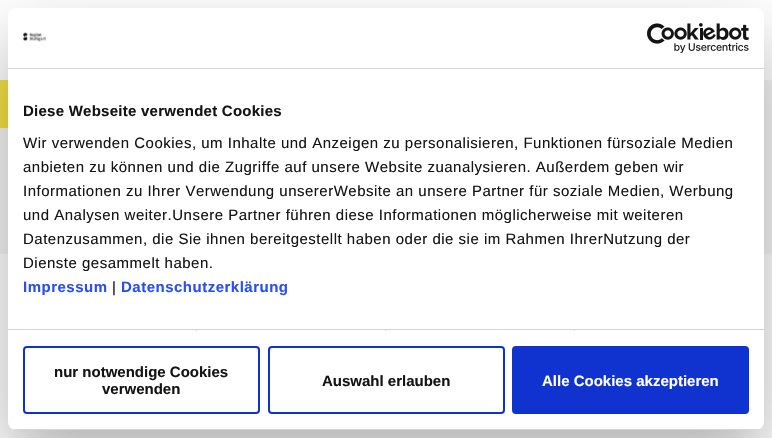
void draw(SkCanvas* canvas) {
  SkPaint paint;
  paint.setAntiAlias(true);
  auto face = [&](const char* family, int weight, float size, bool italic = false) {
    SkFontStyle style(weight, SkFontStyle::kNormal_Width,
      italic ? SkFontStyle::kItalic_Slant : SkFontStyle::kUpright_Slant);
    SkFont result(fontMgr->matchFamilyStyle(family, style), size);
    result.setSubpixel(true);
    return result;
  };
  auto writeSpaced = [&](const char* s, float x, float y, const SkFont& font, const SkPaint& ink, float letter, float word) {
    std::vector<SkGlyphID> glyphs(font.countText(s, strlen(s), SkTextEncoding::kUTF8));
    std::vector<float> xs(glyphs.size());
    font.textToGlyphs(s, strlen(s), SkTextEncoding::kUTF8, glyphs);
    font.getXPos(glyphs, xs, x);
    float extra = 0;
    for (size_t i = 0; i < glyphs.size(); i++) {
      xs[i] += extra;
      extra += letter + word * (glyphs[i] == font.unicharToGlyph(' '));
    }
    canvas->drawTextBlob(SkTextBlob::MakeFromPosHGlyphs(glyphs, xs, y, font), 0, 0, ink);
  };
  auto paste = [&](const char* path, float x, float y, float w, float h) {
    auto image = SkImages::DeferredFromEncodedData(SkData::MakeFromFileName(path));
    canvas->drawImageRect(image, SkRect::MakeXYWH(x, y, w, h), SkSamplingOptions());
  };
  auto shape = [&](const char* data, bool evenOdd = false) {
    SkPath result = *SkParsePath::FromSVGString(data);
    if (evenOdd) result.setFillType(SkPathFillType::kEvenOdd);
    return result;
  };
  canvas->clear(0xffffffff);
  paint.setColor(0xfff5f5f6);
  canvas->drawRect(SkRect::MakeXYWH(0, 80, 772, 174), paint);
  paint.setColor(0xfff5e146);
  canvas->drawRect(SkRect::MakeXYWH(0, 80, 8, 48), paint);
  paint.setColor(0x4d000000);
  paint.setMaskFilter(SkMaskFilter::MakeBlur(kNormal_SkBlurStyle, 34));
  canvas->drawRoundRect(SkRect::MakeXYWH(8, 40, 756, 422), 8, 8, paint);
  paint.setMaskFilter(nullptr);
  paint.setColor(0xffffffff);
  canvas->drawRoundRect(SkRect::MakeXYWH(8, 8, 756, 422), 8, 8, paint);
  paint.setColor(0xffd6d6d6);
  canvas->drawRect(SkRect::MakeXYWH(8, 68, 756, 1), paint);
  paste("img/1.png", 23, 32, 23, 10);
  paste("img/2.png", 647, 23, 102, 30);
  {
    const struct { float x, y, w, h; SkColor color; } items[] = {
      {8, 329, 756, 1, 0xffd6d6d6},
      {196, 330, 1, 1, 0xffd6d6d6},
      {385, 330, 1, 1, 0xffd6d6d6},
      {574, 330, 1, 1, 0xffd6d6d6},
    };
    for (auto [x, y, w, h, color] : items) {
      paint.setColor(color);
      canvas->drawRect(SkRect::MakeXYWH(x, y, w, h), paint);
    }
  }
  canvas->save();
  canvas->clipPath(shape("M16 8H756C760.5 8 764 11.5 764 16V422C764 426.5 760.5 430 756 430H16C11.5 430 8 426.5 8 422V16C8 11.5 11.5 8 16 8Z"), true);
  canvas->drawRect(SkRect::MakeXYWH(8, 429, 756, 1), paint);
  canvas->restore();
  paint.setStroke(true);
  paint.setStrokeWidth(2);
  paint.setColor(0xff1032cf);
  canvas->drawRoundRect(SkRect::MakeXYWH(24, 347, 235, 66), 3, 3, paint);
  canvas->drawRoundRect(SkRect::MakeXYWH(269, 347, 235, 66), 3, 3, paint);
  paint.setStroke(false);
  canvas->drawRoundRect(SkRect::MakeXYWH(513, 347, 235, 66), 3, 3, paint);
  paint.setStroke(true);
  canvas->drawRoundRect(SkRect::MakeXYWH(513, 347, 235, 66), 3, 3, paint);
  auto f0 = face("Liberation Sans", 700, 15);
  paint.setStroke(false);
  paint.setColor(0xff141414);
  writeSpaced("Diese Webseite verwendet Cookies", 23, 116, f0, paint, 0.25f, 0);
  auto f1 = face("Liberation Sans", 400, 15);
  {
    const struct { const char* s; float x, y; } items[] = {
      {"Wir verwenden Cookies, um Inhalte und Anzeigen zu personalisieren, Funktionen fürsoziale Medien", 23, 148},
      {"anbieten zu können und die Zugriffe auf unsere Website zuanalysieren. Außerdem geben wir", 23, 172},
      {"Informationen zu Ihrer Verwendung unsererWebsite an unsere Partner für soziale Medien, Werbung", 23, 196},
      {"und Analysen weiter.Unsere Partner führen diese Informationen möglicherweise mit weiteren", 23, 220},
      {"Datenzusammen, die Sie ihnen bereitgestellt haben oder die sie im Rahmen IhrerNutzung der", 23, 244},
      {"Dienste gesammelt haben.", 23, 268},
    };
    for (auto [s, x, y] : items) {
      writeSpaced(s, x, y, f1, paint, 0.5f, 0);
    }
  }
  paint.setColor(0xff2a4eef);
  writeSpaced("Impressum", 23, 292, f0, paint, 0.5f, 0);
  paint.setColor(0xff141414);
  writeSpaced("|", 112, 292, f1, paint, 0.5f, 0);
  paint.setColor(0xff2a4eef);
  writeSpaced("Datenschutzerklärung", 121, 292, f0, paint, 0.5f, 0);
  paint.setColor(0xff141414);
  {
    const struct { const char* s; float x, y; } items[] = {
      {"nur notwendige Cookies", 54, 377},
      {"verwenden", 102, 394},
      {"Auswahl erlauben", 322, 386},
    };
    for (auto [s, x, y] : items) {
      canvas->drawString(s, x, y, f0, paint);
    }
  }
  paint.setColor(0xffffffff);
  canvas->drawString("Alle Cookies akzeptieren", 542, 386, f0, paint);
}
